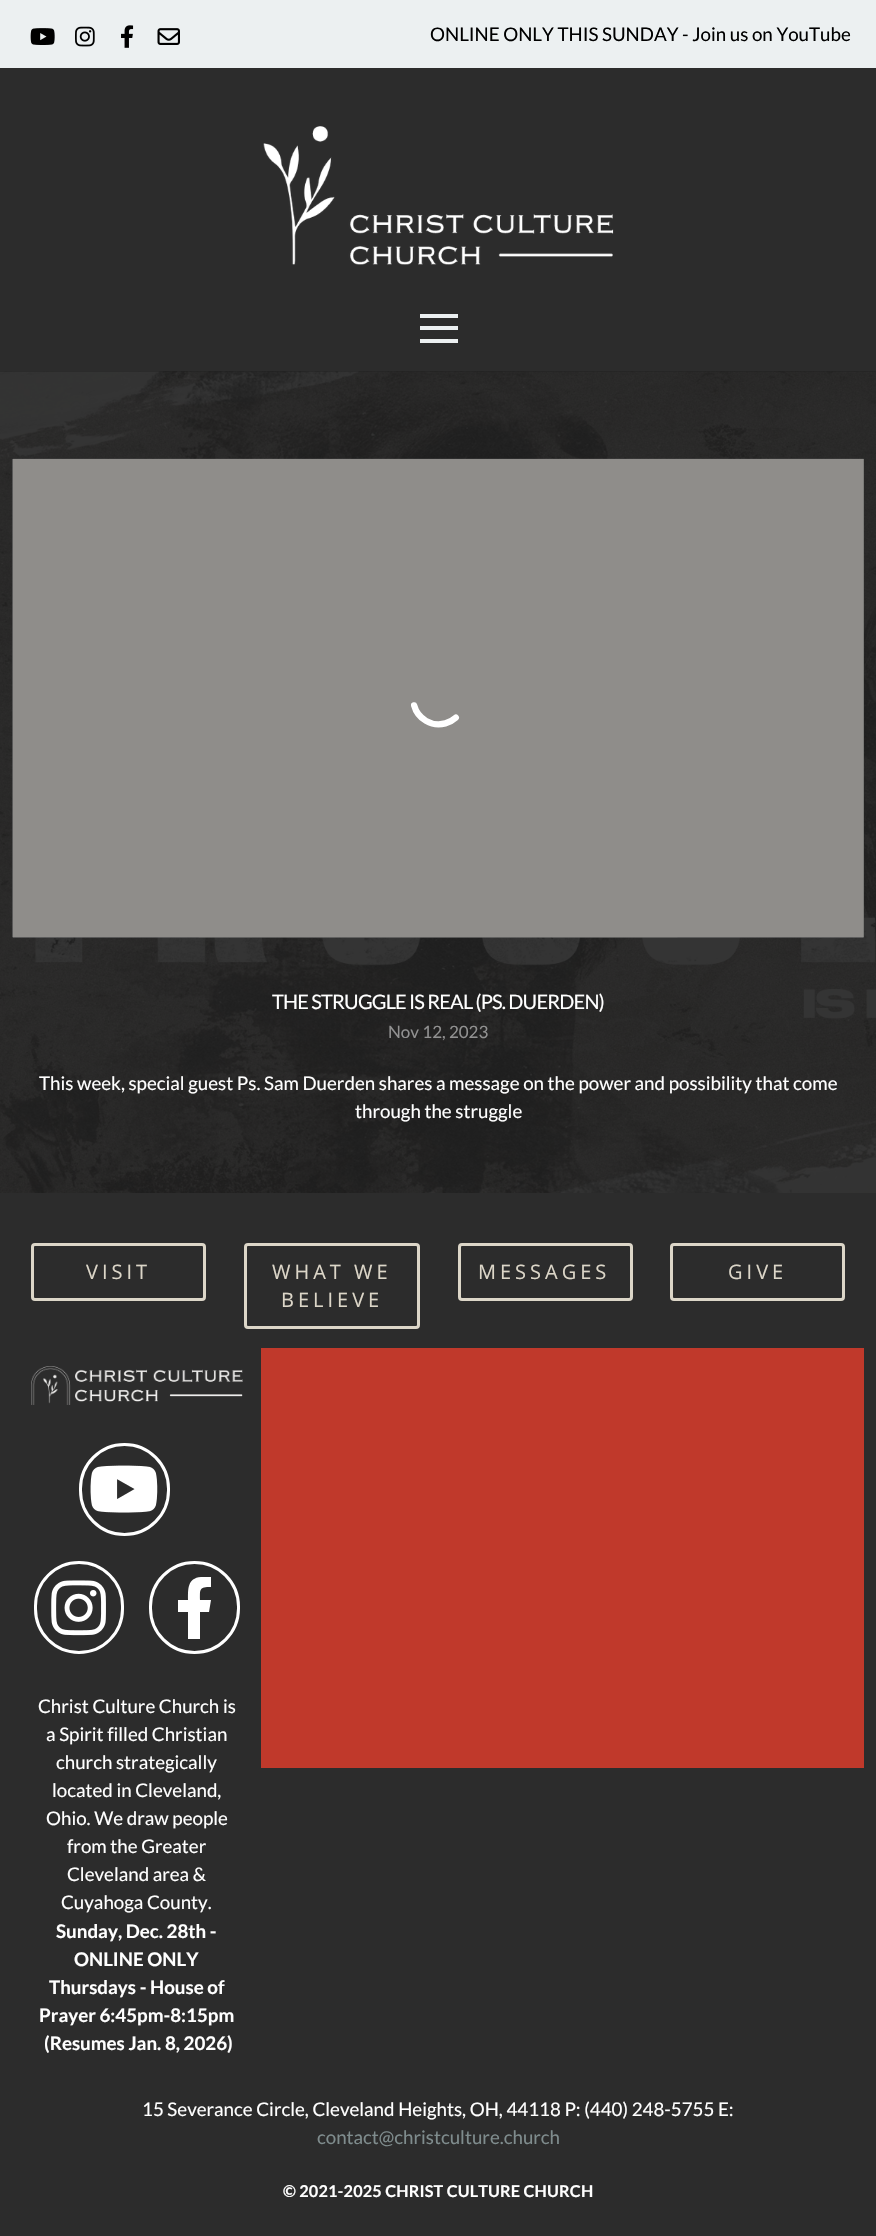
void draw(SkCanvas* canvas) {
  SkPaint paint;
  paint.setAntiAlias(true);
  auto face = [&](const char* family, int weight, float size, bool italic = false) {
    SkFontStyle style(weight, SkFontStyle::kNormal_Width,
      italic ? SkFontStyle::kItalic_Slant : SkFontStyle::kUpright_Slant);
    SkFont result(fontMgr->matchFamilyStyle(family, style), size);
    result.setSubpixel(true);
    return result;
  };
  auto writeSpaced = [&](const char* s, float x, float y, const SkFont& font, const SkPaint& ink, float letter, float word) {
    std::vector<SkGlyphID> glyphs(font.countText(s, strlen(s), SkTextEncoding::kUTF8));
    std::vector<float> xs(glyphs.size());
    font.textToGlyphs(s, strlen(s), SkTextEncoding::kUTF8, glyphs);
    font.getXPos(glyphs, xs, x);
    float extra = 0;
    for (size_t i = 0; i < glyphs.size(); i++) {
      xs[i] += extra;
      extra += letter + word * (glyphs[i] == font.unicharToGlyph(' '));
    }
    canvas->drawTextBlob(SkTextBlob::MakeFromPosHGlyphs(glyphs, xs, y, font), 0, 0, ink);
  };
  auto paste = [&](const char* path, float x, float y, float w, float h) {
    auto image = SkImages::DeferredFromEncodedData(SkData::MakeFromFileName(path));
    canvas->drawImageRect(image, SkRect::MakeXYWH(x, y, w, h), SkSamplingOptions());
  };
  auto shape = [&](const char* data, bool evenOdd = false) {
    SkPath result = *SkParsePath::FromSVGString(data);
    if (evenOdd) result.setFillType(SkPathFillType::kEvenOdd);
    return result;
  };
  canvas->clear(0xff2c2c2c);
  paint.setColor(0xffecf0f1);
  canvas->drawRect(SkRect::MakeXYWH(0, 0, 876, 68), paint);
  paste("img/1.png", 30, 28, 25, 17);
  paste("img/2.png", 75, 26, 20, 21);
  paste("img/3.png", 121, 25, 13, 23);
  paste("img/4.png", 157, 28, 23, 17);
  paste("img/5.png", 263, 126, 351, 139);
  {
    const struct { float x, y, w, h; SkColor color; } items[] = {
      {420, 314, 38, 4, 0xffecf0f1},
      {420, 326, 38, 4, 0xffecf0f1},
      {420, 339, 38, 4, 0xffecf0f1},
      {0, 371, 876, 1, 0xff1f1f1f},
    };
    for (auto [x, y, w, h, color] : items) {
      paint.setColor(color);
      canvas->drawRect(SkRect::MakeXYWH(x, y, w, h), paint);
    }
  }
  paste("img/6.png", 0, 371, 876, 822);
  paste("img/7.png", 12, 458, 852, 480);
  paint.setStroke(true);
  paint.setStrokeWidth(3);
  paint.setColor(0xffdcd6c8);
  canvas->drawRoundRect(SkRect::MakeXYWH(32.5f, 1244.5f, 172, 55), 2.5f, 2.5f, paint);
  canvas->drawRoundRect(SkRect::MakeXYWH(245.5f, 1244.5f, 173, 83), 2.5f, 2.5f, paint);
  canvas->drawRoundRect(SkRect::MakeXYWH(459.5f, 1244.5f, 172, 55), 2.5f, 2.5f, paint);
  canvas->drawRoundRect(SkRect::MakeXYWH(671.5f, 1244.5f, 172, 55), 2.5f, 2.5f, paint);
  paint.setStroke(false);
  paint.setColor(0xffc0392b);
  canvas->drawRect(SkRect::MakeXYWH(261, 1348, 603, 420), paint);
  paste("img/8.png", 31, 1366, 212, 39);
  paint.setStroke(true);
  paint.setColor(0xffffffff);
  canvas->drawRoundRect(SkRect::MakeXYWH(80.5f, 1444.5f, 88, 90), 44, 44, paint);
  paste("img/9.png", 90, 1465, 68, 48);
  canvas->drawRoundRect(SkRect::MakeXYWH(35.5f, 1562.5f, 87, 90), 43.5f, 43.5f, paint);
  paste("img/10.png", 51, 1580, 55, 56);
  canvas->drawRoundRect(SkRect::MakeXYWH(150.5f, 1562.5f, 88, 90), 44, 44, paint);
  paint.setStroke(false);
  canvas->drawPath(shape("M209 1612L211 1600H200C200 1589 199 1587 211 1587V1577H201C187 1578 188 1590 188 1600H178V1612H188V1639H200V1612Z"), paint);
  auto f0 = face("Lato", 400, 18.75f);
  paint.setColor(0xff000000);
  canvas->drawString("ONLINE ONLY THIS SUNDAY - Join us on YouTube", 430, 41, f0, paint);
  auto f1 = face("Lato", 400, 20);
  paint.setColor(0xffffffff);
  writeSpaced("THE STRUGGLE IS REAL (PS. DUERDEN)", 272, 1009, f1, paint, -0.8f, 0);
  auto f2 = face("Lato", 400, 17);
  paint.setColor(0xff919191);
  canvas->drawString("Nov 12, 2023", 388, 1038, f2, paint);
  paint.setColor(0xffffffff);
  canvas->drawString("This week, special guest Ps. Sam Duerden shares a message on the power and possibility that come", 39, 1090, f0, paint);
  canvas->drawString("through the struggle", 355, 1118, f0, paint);
  auto f3 = face("Open Sans", 400, 20);
  paint.setColor(0xffdcd6c8);
  {
    const struct { const char* s; float x, y; } items[] = {
      {"VISIT", 86, 1279},
      {"WHAT WE", 272, 1279},
      {"BELIEVE", 281, 1307},
      {"MESSAGES", 478, 1279},
      {"GIVE", 728, 1279},
    };
    for (auto [s, x, y] : items) {
      writeSpaced(s, x, y, f3, paint, 4, 0);
    }
  }
  paint.setColor(0xffffffff);
  {
    const struct { const char* s; float x, y; } items[] = {
      {"Christ Culture Church is", 38, 1713},
      {"a Spirit filled Christian", 46, 1741},
      {"church strategically", 56, 1769},
      {"located in Cleveland,", 52, 1797},
      {"Ohio. We draw people", 46, 1825},
      {"from the Greater", 67, 1853},
      {"Cleveland area &", 67, 1881},
      {"Cuyahoga County.", 61, 1909},
    };
    for (auto [s, x, y] : items) {
      canvas->drawString(s, x, y, f0, paint);
    }
  }
  auto f4 = face("Lato", 700, 18.75f);
  {
    const struct { const char* s; float x, y; } items[] = {
      {"Sunday, Dec. 28th -", 56, 1938},
      {"ONLINE ONLY", 74, 1966},
      {"Thursdays - House of", 49, 1994},
      {"Prayer 6:45pm-8:15pm", 39, 2022},
      {"(Resumes Jan. 8, 2026)", 44, 2050},
    };
    for (auto [s, x, y] : items) {
      canvas->drawString(s, x, y, f4, paint);
    }
  }
  canvas->drawString("15 Severance Circle, Cleveland Heights, OH, 44118 P: (440) 248-5755 E:", 142, 2116, f0, paint);
  paint.setColor(0xff7f8c8d);
  canvas->drawString("contact@christculture.church", 317, 2144, f0, paint);
  auto f5 = face("Lato", 700, 16.25f);
  paint.setColor(0xffffffff);
  writeSpaced("© 2021-2025 CHRIST CULTURE CHURCH", 283, 2197, f5, paint, 0.15f, 0);
}
